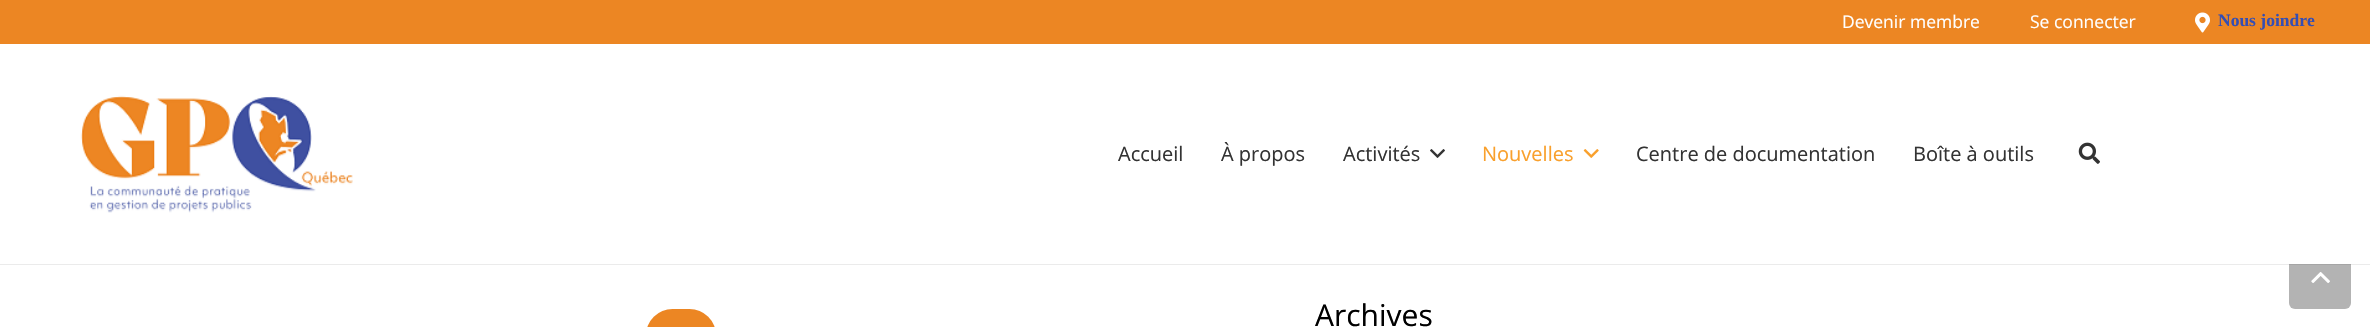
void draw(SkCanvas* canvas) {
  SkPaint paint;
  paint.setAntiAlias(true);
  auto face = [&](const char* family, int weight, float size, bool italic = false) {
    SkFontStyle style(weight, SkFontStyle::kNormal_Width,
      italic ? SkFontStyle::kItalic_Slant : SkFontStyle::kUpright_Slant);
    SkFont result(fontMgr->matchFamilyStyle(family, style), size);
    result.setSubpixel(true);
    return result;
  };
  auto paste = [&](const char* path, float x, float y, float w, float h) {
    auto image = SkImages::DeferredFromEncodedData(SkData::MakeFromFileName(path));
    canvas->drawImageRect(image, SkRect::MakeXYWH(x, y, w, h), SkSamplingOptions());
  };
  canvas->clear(0xffffffff);
  paint.setColor(0xffebebeb);
  canvas->drawRect(SkRect::MakeXYWH(0, 264, 2370, 1), paint);
  paint.setColor(0xffec8623);
  canvas->drawRect(SkRect::MakeXYWH(0, 0, 2370, 44), paint);
  paste("img/1.png", 2195, 12, 15, 21);
  paint.setColor(0xffb3b3b3);
  canvas->drawRoundRect(SkRect::MakeXYWH(2289, 246, 62, 63), 6, 6, paint);
  paint.setColor(0xffffffff);
  canvas->drawRect(SkRect::MakeXYWH(2289, 246, 62, 18), paint);
  paste("img/2.png", 80, 95, 273, 118);
  paste("img/3.png", 1430, 149, 15, 9);
  paste("img/4.png", 1583, 149, 16, 9);
  paste("img/5.png", 2078, 142, 22, 22);
  paint.setColor(0xffec8623);
  canvas->drawRoundRect(SkRect::MakeXYWH(646, 309, 70, 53), 35, 35, paint);
  paint.setColor(0xffa5a5a5);
  canvas->drawRect(SkRect::MakeXYWH(2289, 264, 62, 1), paint);
  paste("img/6.png", 2311, 272, 19, 11);
  auto f0 = face("Open Sans", 400, 17.5f);
  paint.setColor(0xffffffff);
  canvas->drawString("Devenir membre", 1842, 28, f0, paint);
  canvas->drawString("Se connecter", 2030, 28, f0, paint);
  auto f1 = face("Liberation Serif", 700, 17.5f);
  paint.setColor(0xff354eb3);
  canvas->drawString("Nous joindre", 2218, 26, f1, paint);
  auto f2 = face("Open Sans", 400, 20);
  paint.setColor(0xff333333);
  {
    const struct { const char* s; float x, y; } items[] = {
      {"Accueil", 1118, 161},
      {"À propos", 1221, 161},
      {"Activités", 1343, 161},
    };
    for (auto [s, x, y] : items) {
      canvas->drawString(s, x, y, f2, paint);
    }
  }
  paint.setColor(0xfff9a02c);
  canvas->drawString("Nouvelles", 1482, 161, f2, paint);
  paint.setColor(0xff333333);
  canvas->drawString("Centre de documentation", 1636, 161, f2, paint);
  canvas->drawString("Boîte à outils", 1913, 161, f2, paint);
  auto f3 = face("Open Sans", 400, 30);
  paint.setColor(0xff000000);
  canvas->drawString("Archives", 1315, 326, f3, paint);
}
